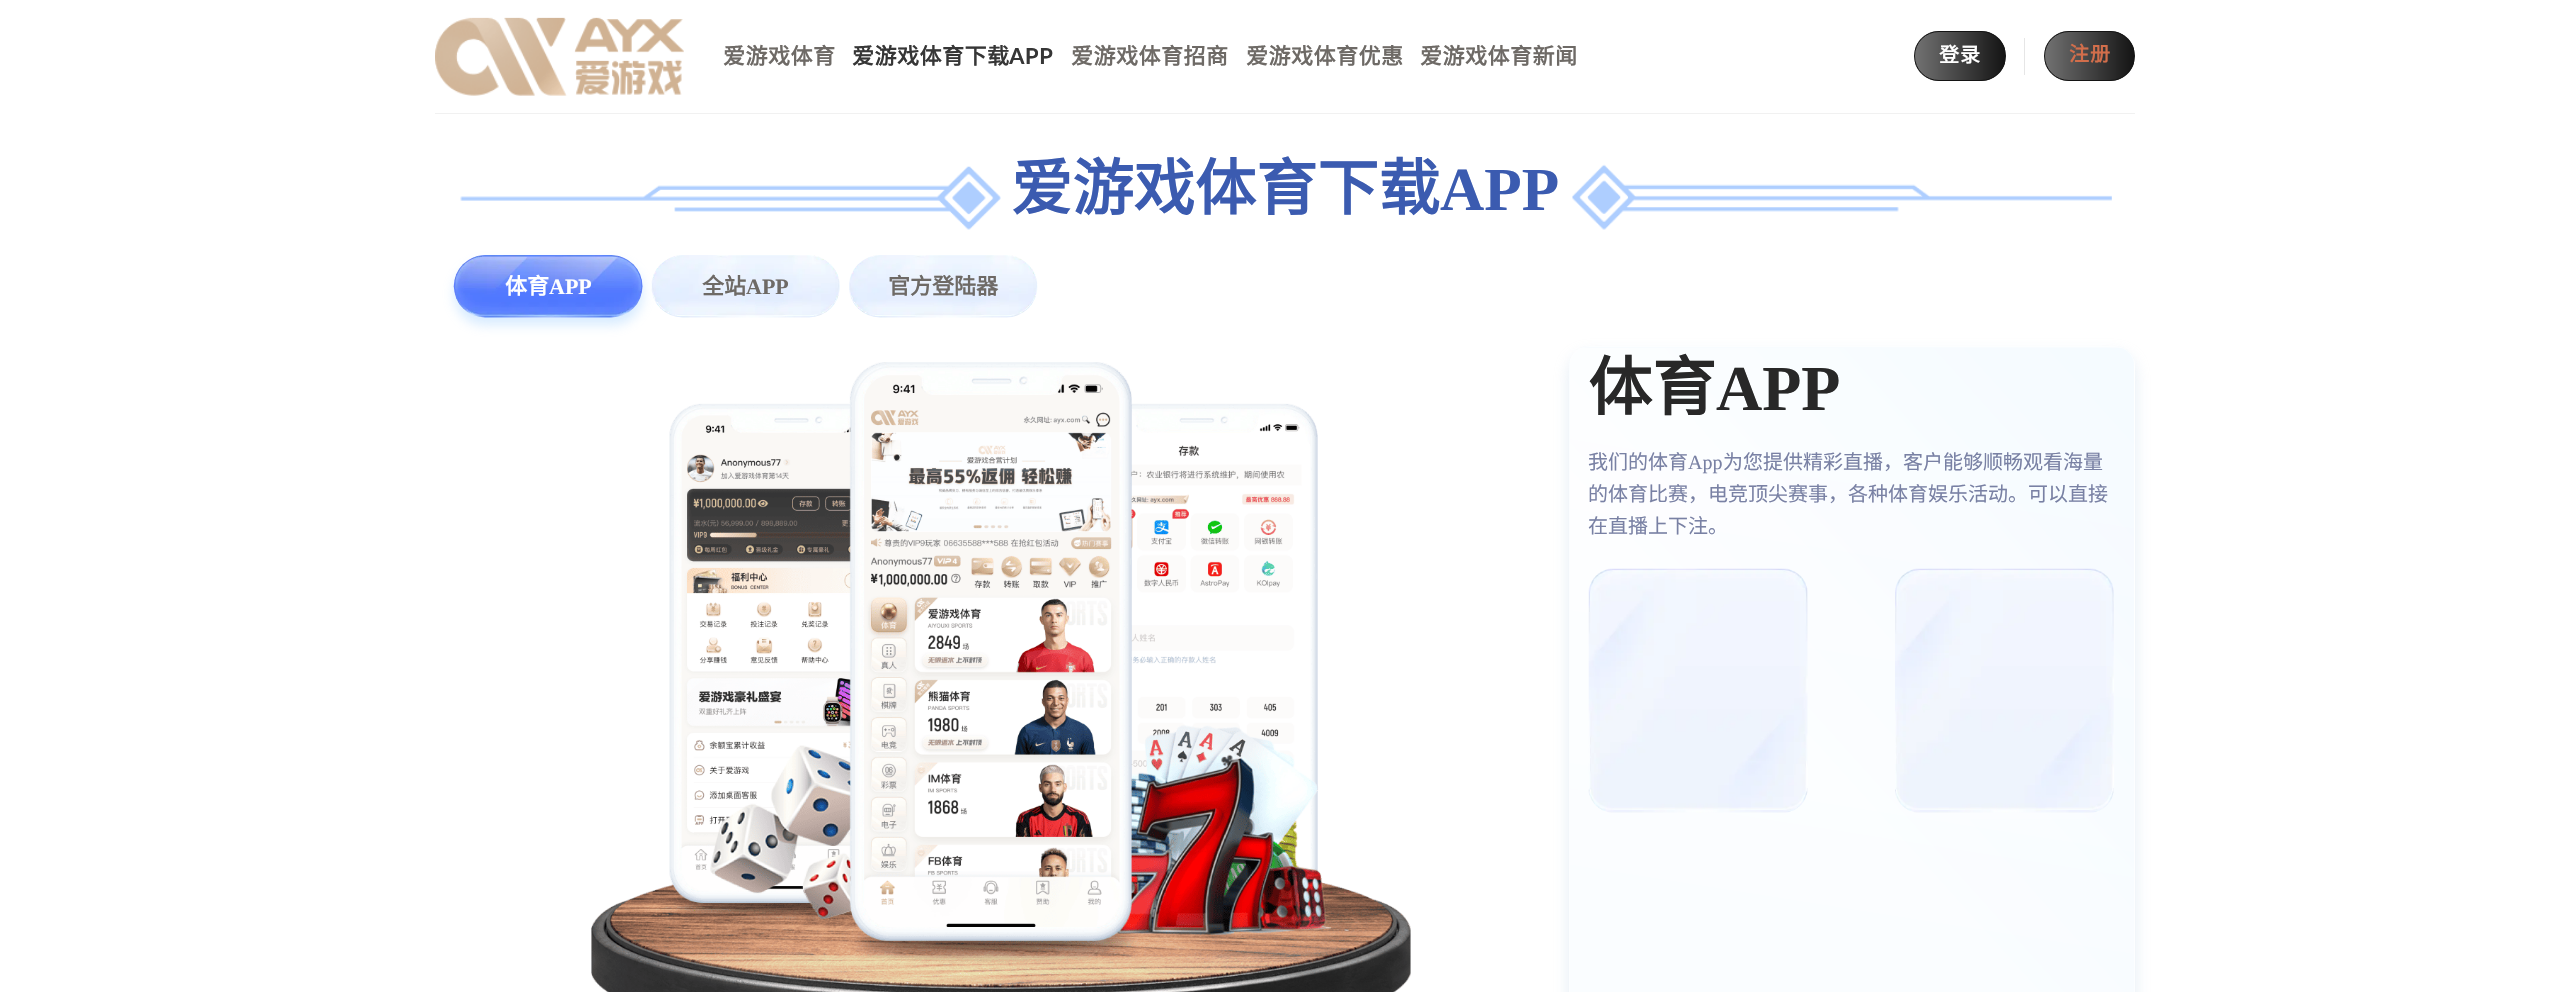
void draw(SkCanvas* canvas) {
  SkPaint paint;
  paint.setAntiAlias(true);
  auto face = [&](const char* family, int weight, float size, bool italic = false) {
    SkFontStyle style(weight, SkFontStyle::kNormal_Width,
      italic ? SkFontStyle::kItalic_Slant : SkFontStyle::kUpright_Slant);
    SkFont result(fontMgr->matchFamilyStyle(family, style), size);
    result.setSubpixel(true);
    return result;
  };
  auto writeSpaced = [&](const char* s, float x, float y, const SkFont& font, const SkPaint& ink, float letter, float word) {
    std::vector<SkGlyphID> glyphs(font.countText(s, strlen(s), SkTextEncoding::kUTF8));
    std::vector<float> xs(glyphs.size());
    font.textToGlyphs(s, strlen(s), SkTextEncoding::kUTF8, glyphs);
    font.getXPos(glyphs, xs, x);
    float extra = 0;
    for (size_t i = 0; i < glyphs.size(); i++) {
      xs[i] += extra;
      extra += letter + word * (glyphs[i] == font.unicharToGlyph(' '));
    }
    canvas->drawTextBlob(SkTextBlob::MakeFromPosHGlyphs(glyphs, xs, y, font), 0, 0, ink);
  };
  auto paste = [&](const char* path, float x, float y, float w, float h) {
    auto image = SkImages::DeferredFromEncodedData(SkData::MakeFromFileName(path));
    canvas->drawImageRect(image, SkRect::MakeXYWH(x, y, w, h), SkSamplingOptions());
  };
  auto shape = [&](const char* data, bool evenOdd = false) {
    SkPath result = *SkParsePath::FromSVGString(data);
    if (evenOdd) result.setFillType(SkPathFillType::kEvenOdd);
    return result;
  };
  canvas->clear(0xffffffff);
  paste("img/1.png", 435, 17, 249, 79);
  canvas->save();
  canvas->clipPath(shape("M1939 31H1981C1995 31 2006 42 2006 56C2006 70 1995 81 1981 81H1939C1925 81 1914 70 1914 56C1914 42 1925 31 1939 31Z"), true);
  {
    const SkColor colors[] = {0xff727272, 0xff141414};
    const float stops[] = {0, 1};
    const SkPoint ends[] = {{1915, 56}, {2005, 56}};
    paint.setShader(SkGradientShader::MakeLinear(ends, colors, stops, 2, SkTileMode::kClamp));
    paint.setAlpha(255);
  }
  canvas->drawRect(SkRect::MakeXYWH(1915, 31, 90, 50), paint);
  canvas->restore();
  paint.setStroke(true);
  paint.setStrokeWidth(1);
  paint.setShader(nullptr);
  paint.setColor(0xff141414);
  canvas->drawRoundRect(SkRect::MakeXYWH(1914.5f, 31.5f, 91, 49), 24.5f, 24.5f, paint);
  paint.setStroke(false);
  paint.setColor(0xffe6e6e6);
  canvas->drawRect(SkRect::MakeXYWH(2024, 38, 1, 37), paint);
  canvas->save();
  canvas->clipPath(shape("M2069 31H2110C2124 31 2135 42 2135 56C2135 70 2124 81 2110 81H2069C2055 81 2044 70 2044 56C2044 42 2055 31 2069 31Z"), true);
  {
    const SkColor colors[] = {0xff727272, 0xff141414};
    const float stops[] = {0, 1};
    const SkPoint ends[] = {{2045, 56}, {2134, 56}};
    paint.setShader(SkGradientShader::MakeLinear(ends, colors, stops, 2, SkTileMode::kClamp));
    paint.setAlpha(255);
  }
  canvas->drawRect(SkRect::MakeXYWH(2045, 31, 89, 50), paint);
  canvas->restore();
  paint.setStroke(true);
  paint.setShader(nullptr);
  paint.setColor(0xff141414);
  canvas->drawRoundRect(SkRect::MakeXYWH(2044.5f, 31.5f, 90, 49), 24.5f, 24.5f, paint);
  paint.setStroke(false);
  paint.setColor(0xfff1f1f1);
  canvas->drawRect(SkRect::MakeXYWH(435, 113, 1700, 1), paint);
  paste("img/2.png", 460, 166, 541, 64);
  paste("img/3.png", 1572, 164, 540, 66);
  paste("img/4.png", 454, 255, 189, 63);
  paint.setColor(0x669ccdff);
  paint.setMaskFilter(SkMaskFilter::MakeBlur(kNormal_SkBlurStyle, 6));
  canvas->drawRoundRect(SkRect::MakeXYWH(454, 263, 189, 62), 31, 31, paint);
  paint.setMaskFilter(nullptr);
  paste("img/5.png", 453, 255, 190, 63);
  paste("img/6.png", 651, 255, 189, 63);
  paste("img/7.png", 849, 255, 189, 63);
  paste("img/8.png", 591, 362, 820, 630);
  paint.setColor(0x5cb4cee4);
  paint.setMaskFilter(SkMaskFilter::MakeBlur(kNormal_SkBlurStyle, 7.5f));
  canvas->drawRoundRect(SkRect::MakeXYWH(1569, 354, 566, 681), 20, 20, paint);
  paint.setMaskFilter(nullptr);
  canvas->save();
  canvas->clipPath(shape("M1589 346H2115C2126 346 2135 355 2135 366V1186C2135 1197 2126 1206 2115 1206H1589C1578 1206 1569 1197 1569 1186V366C1569 355 1578 346 1589 346Z"), true);
  {
    const SkColor colors[] = {0xffedf7ff, 0xfffdfeff};
    const float stops[] = {0.01f, 0.87f};
    const SkPoint ends[] = {{1779, 381}, {1925, -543}};
    paint.setShader(SkGradientShader::MakeLinear(ends, colors, stops, 2, SkTileMode::kClamp));
    paint.setAlpha(255);
  }
  canvas->drawRect(SkRect::MakeXYWH(1580, 346, 544, 2), paint);
  {
    const SkColor colors[] = {0xffedf7ff, 0xfffdfeff};
    const float stops[] = {0.01f, 0.87f};
    const SkPoint ends[] = {{1215, 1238}, {1361, 314}};
    paint.setShader(SkGradientShader::MakeLinear(ends, colors, stops, 2, SkTileMode::kClamp));
    paint.setAlpha(255);
  }
  canvas->drawRect(SkRect::MakeXYWH(1569, 360, 1, 632), paint);
  {
    const SkColor colors[] = {0xffedf7ff, 0xfffdfeff};
    const float stops[] = {0.01f, 0.87f};
    const SkPoint ends[] = {{1779, 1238}, {1925, 314}};
    paint.setShader(SkGradientShader::MakeLinear(ends, colors, stops, 2, SkTileMode::kClamp));
    paint.setAlpha(255);
  }
  canvas->drawRect(SkRect::MakeXYWH(1570, 348, 564, 644), paint);
  {
    const SkColor colors[] = {0xffedf7ff, 0xfffdfeff};
    const float stops[] = {0.01f, 0.87f};
    const SkPoint ends[] = {{2342, 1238}, {2489, 314}};
    paint.setShader(SkGradientShader::MakeLinear(ends, colors, stops, 2, SkTileMode::kClamp));
    paint.setAlpha(255);
  }
  canvas->drawRect(SkRect::MakeXYWH(2134, 360, 1, 632), paint);
  {
    const SkColor colors[] = {0x99f0f8ff, 0x99ffffff};
    const float stops[] = {0.05f, 0.52f};
    const SkPoint ends[] = {{2221, -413}, {1483, 251}};
    paint.setShader(SkGradientShader::MakeLinear(ends, colors, stops, 2, SkTileMode::kClamp));
    paint.setAlpha(255);
  }
  canvas->drawRect(SkRect::MakeXYWH(1580, 346, 544, 2), paint);
  {
    const SkColor colors[] = {0x99f0f8ff, 0x99ffffff};
    const float stops[] = {0.05f, 0.52f};
    const SkPoint ends[] = {{1657, 444}, {919, 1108}};
    paint.setShader(SkGradientShader::MakeLinear(ends, colors, stops, 2, SkTileMode::kClamp));
    paint.setAlpha(255);
  }
  canvas->drawRect(SkRect::MakeXYWH(1569, 360, 1, 632), paint);
  {
    const SkColor colors[] = {0x99f0f8ff, 0x99ffffff};
    const float stops[] = {0.05f, 0.52f};
    const SkPoint ends[] = {{2221, 444}, {1483, 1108}};
    paint.setShader(SkGradientShader::MakeLinear(ends, colors, stops, 2, SkTileMode::kClamp));
    paint.setAlpha(255);
  }
  canvas->drawRect(SkRect::MakeXYWH(1570, 348, 564, 644), paint);
  {
    const SkColor colors[] = {0x99f0f8ff, 0x99ffffff};
    const float stops[] = {0.05f, 0.52f};
    const SkPoint ends[] = {{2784, 444}, {2047, 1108}};
    paint.setShader(SkGradientShader::MakeLinear(ends, colors, stops, 2, SkTileMode::kClamp));
    paint.setAlpha(255);
  }
  canvas->drawRect(SkRect::MakeXYWH(2134, 360, 1, 632), paint);
  canvas->restore();
  paint.setStroke(true);
  paint.setShader(nullptr);
  paint.setColor(0x80ffffff);
  canvas->drawRoundRect(SkRect::MakeXYWH(1569.5f, 346.5f, 565, 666), 19.5f, 19.5f, paint);
  paste("img/9.png", 1588, 568, 220, 245);
  paint.setStroke(false);
  paint.setColor(0x2effffff);
  canvas->drawRoundRect(SkRect::MakeXYWH(1589, 569, 219, 250), 38, 38, paint);
  paste("img/10.png", 1895, 568, 219, 245);
  canvas->drawRoundRect(SkRect::MakeXYWH(1895, 569, 220, 250), 38, 38, paint);
  auto f0 = face("Noto Sans CJK SC", 700, 22);
  paint.setColor(0xff6e6a66);
  writeSpaced("爱游戏体育", 723, 64, f0, paint, 0.5f, 0);
  paint.setColor(0xff363636);
  writeSpaced("爱游戏体育下载", 852, 64, f0, paint, 0.5f, 0);
  auto f1 = face("Lato", 700, 22);
  writeSpaced("APP", 1009, 64, f1, paint, 0.5f, 0);
  paint.setColor(0xff6e6a66);
  {
    const struct { const char* s; float x, y; } items[] = {
      {"爱游戏体育招商", 1071, 64},
      {"爱游戏体育优惠", 1246, 64},
      {"爱游戏体育新闻", 1420, 64},
    };
    for (auto [s, x, y] : items) {
      writeSpaced(s, x, y, f0, paint, 0.5f, 0);
    }
  }
  auto f2 = face("Noto Sans CJK SC", 700, 20);
  paint.setColor(0xffffffff);
  writeSpaced("登录", 1939, 62, f2, paint, 1, 0);
  paint.setColor(0xffd26e4b);
  writeSpaced("注册", 2069, 61, f2, paint, 1, 0);
  auto f3 = face("Noto Sans CJK SC", 700, 61.25f);
  paint.setColor(0xff3b5bb0);
  canvas->drawString("爱游戏体育下载", 1011, 210, f3, paint);
  auto f4 = face("Liberation Serif", 700, 61.25f);
  canvas->drawString("APP", 1440, 210, f4, paint);
  paint.setColor(0xffffffff);
  canvas->drawString("体育", 505, 294, f0, paint);
  auto f5 = face("Liberation Serif", 700, 22);
  canvas->drawString("APP", 549, 294, f5, paint);
  paint.setColor(0xff6e6a66);
  canvas->drawString("全站", 702, 294, f0, paint);
  canvas->drawString("APP", 746, 294, f5, paint);
  canvas->drawString("官方登陆器", 888, 294, f0, paint);
  auto f6 = face("Noto Sans CJK SC", 700, 64);
  paint.setColor(0xff282828);
  canvas->drawString("体育", 1588, 410, f6, paint);
  auto f7 = face("Liberation Serif", 700, 64);
  canvas->drawString("APP", 1716, 410, f7, paint);
  auto f8 = face("Noto Sans CJK SC", 400, 20);
  paint.setColor(0xff7981a4);
  canvas->drawString("我们的体育", 1588, 469, f8, paint);
  auto f9 = face("Liberation Serif", 400, 20);
  canvas->drawString("App", 1688, 469, f9, paint);
  {
    const struct { const char* s; float x, y; } items[] = {
      {"为您提供精彩直播，客户能够顺畅观看海量", 1723, 469},
      {"的体育比赛，电竞顶尖赛事，各种体育娱乐活动。可以直接", 1588, 501},
      {"在直播上下注。", 1588, 533},
    };
    for (auto [s, x, y] : items) {
      canvas->drawString(s, x, y, f8, paint);
    }
  }
}
